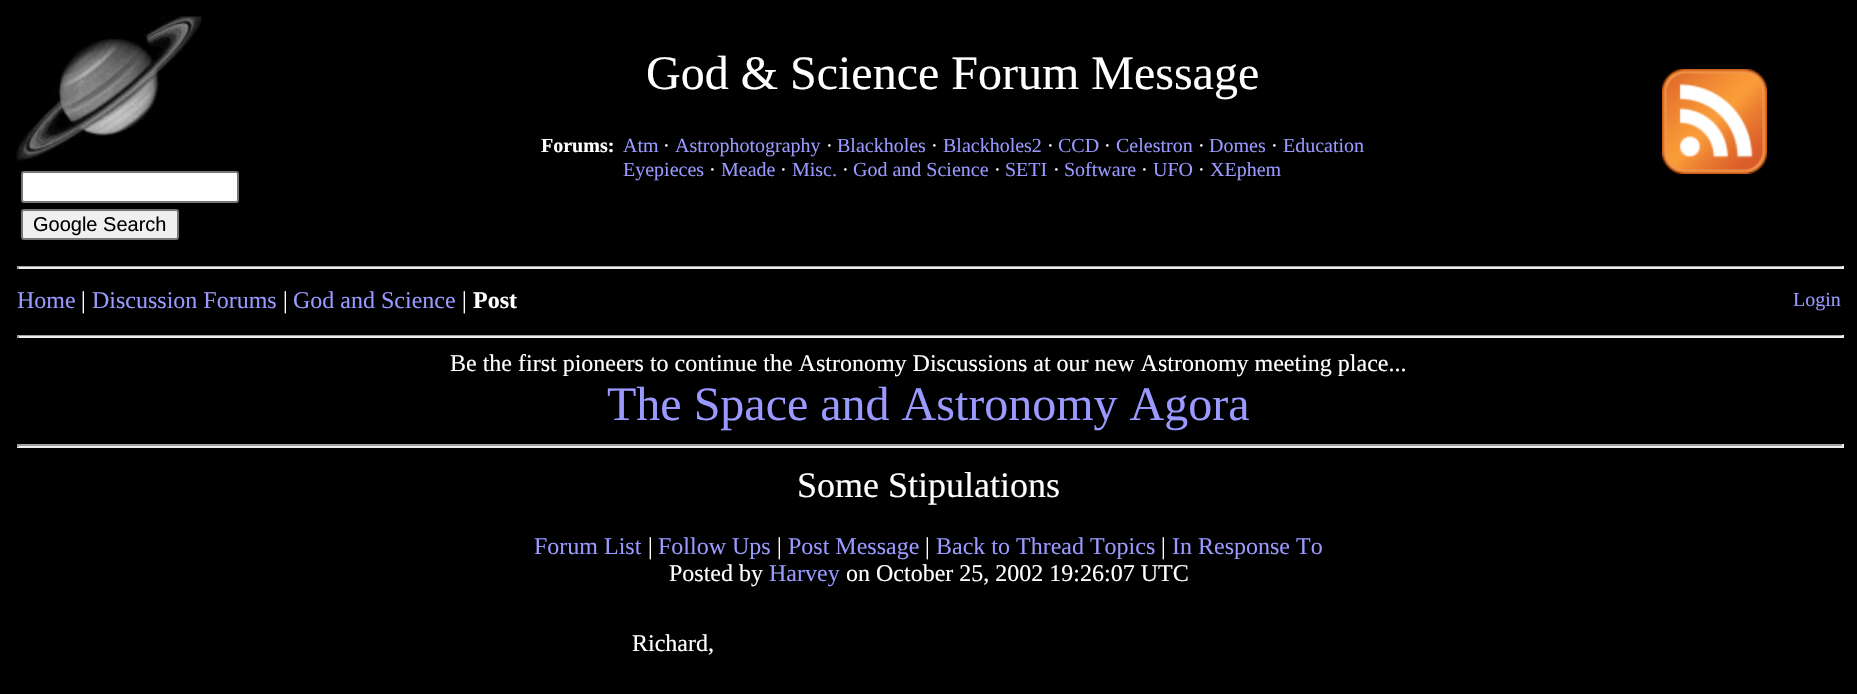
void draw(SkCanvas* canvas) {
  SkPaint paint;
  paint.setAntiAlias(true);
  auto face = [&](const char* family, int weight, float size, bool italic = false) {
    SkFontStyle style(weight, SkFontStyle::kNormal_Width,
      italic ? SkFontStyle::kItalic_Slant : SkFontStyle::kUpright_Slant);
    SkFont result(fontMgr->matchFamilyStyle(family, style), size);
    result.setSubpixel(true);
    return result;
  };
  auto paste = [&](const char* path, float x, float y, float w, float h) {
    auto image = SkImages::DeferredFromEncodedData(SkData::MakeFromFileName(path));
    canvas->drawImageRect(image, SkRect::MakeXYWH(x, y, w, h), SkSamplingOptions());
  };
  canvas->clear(0xff000000);
  paste("img/1.png", 1662, 69, 105, 105);
  paste("img/2.png", 16, 16, 186, 145);
  paint.setColor(0xffffffff);
  canvas->drawRoundRect(SkRect::MakeXYWH(22, 172, 216, 30), 2, 2, paint);
  paint.setStroke(true);
  paint.setStrokeWidth(2);
  paint.setColor(0xff767676);
  canvas->drawRoundRect(SkRect::MakeXYWH(22, 172, 216, 30), 2, 2, paint);
  paint.setStroke(false);
  paint.setColor(0xffefefef);
  canvas->drawRoundRect(SkRect::MakeXYWH(22, 210, 156, 29), 2, 2, paint);
  paint.setStroke(true);
  paint.setColor(0xff767676);
  canvas->drawRoundRect(SkRect::MakeXYWH(22, 210, 156, 29), 2, 2, paint);
  paint.setStroke(false);
  {
    const struct { float x, y, w, h; SkColor color; } items[] = {
      {17, 266, 1827, 1, 0xff9f9f9f},
      {1842, 266, 2, 3, 0xffeeeeee},
      {17, 267, 1827, 2, 0xffeeeeee},
      {17, 266, 2, 3, 0xff9f9f9f},
      {17, 335, 1827, 1, 0xff9f9f9f},
      {1842, 335, 2, 3, 0xffeeeeee},
      {17, 336, 1827, 2, 0xffeeeeee},
      {17, 335, 2, 3, 0xff9f9f9f},
      {17, 444, 1827, 2, 0xff9f9f9f},
      {1842, 444, 2, 3, 0xffeeeeee},
      {17, 446, 1827, 2, 0xffeeeeee},
      {17, 444, 2, 3, 0xff9f9f9f},
    };
    for (auto [x, y, w, h, color] : items) {
      paint.setColor(color);
      canvas->drawRect(SkRect::MakeXYWH(x, y, w, h), paint);
    }
  }
  auto f0 = face("Liberation Serif", 400, 48);
  paint.setColor(0xffffffff);
  canvas->drawString("God & Science Forum Message", 646, 89, f0, paint);
  auto f1 = face("Liberation Serif", 700, 20);
  canvas->drawString("Forums:", 541, 152, f1, paint);
  auto f2 = face("Liberation Serif", 400, 20);
  paint.setColor(0xff9999ff);
  canvas->drawString("Atm", 623, 152, f2, paint);
  paint.setColor(0xffffffff);
  canvas->drawString("·", 663, 152, f2, paint);
  paint.setColor(0xff9999ff);
  canvas->drawString("Astrophotography", 675, 152, f2, paint);
  paint.setColor(0xffffffff);
  canvas->drawString("·", 826, 152, f2, paint);
  paint.setColor(0xff9999ff);
  canvas->drawString("Blackholes", 837, 152, f2, paint);
  paint.setColor(0xffffffff);
  canvas->drawString("·", 931, 152, f2, paint);
  paint.setColor(0xff9999ff);
  canvas->drawString("Blackholes2", 943, 152, f2, paint);
  paint.setColor(0xffffffff);
  canvas->drawString("·", 1047, 152, f2, paint);
  paint.setColor(0xff9999ff);
  canvas->drawString("CCD", 1058, 152, f2, paint);
  paint.setColor(0xffffffff);
  canvas->drawString("·", 1104, 152, f2, paint);
  paint.setColor(0xff9999ff);
  canvas->drawString("Celestron", 1116, 152, f2, paint);
  paint.setColor(0xffffffff);
  canvas->drawString("·", 1198, 152, f2, paint);
  paint.setColor(0xff9999ff);
  canvas->drawString("Domes", 1209, 152, f2, paint);
  paint.setColor(0xffffffff);
  canvas->drawString("·", 1271, 152, f2, paint);
  paint.setColor(0xff9999ff);
  canvas->drawString("Education", 1283, 152, f2, paint);
  canvas->drawString("Eyepieces", 623, 176, f2, paint);
  paint.setColor(0xffffffff);
  canvas->drawString("·", 709, 176, f2, paint);
  paint.setColor(0xff9999ff);
  canvas->drawString("Meade", 721, 176, f2, paint);
  paint.setColor(0xffffffff);
  canvas->drawString("·", 780, 176, f2, paint);
  paint.setColor(0xff9999ff);
  canvas->drawString("Misc.", 792, 176, f2, paint);
  paint.setColor(0xffffffff);
  canvas->drawString("·", 842, 176, f2, paint);
  paint.setColor(0xff9999ff);
  canvas->drawString("God and Science", 853, 176, f2, paint);
  paint.setColor(0xffffffff);
  canvas->drawString("·", 994, 176, f2, paint);
  paint.setColor(0xff9999ff);
  canvas->drawString("SETI", 1005, 176, f2, paint);
  paint.setColor(0xffffffff);
  canvas->drawString("·", 1053, 176, f2, paint);
  paint.setColor(0xff9999ff);
  canvas->drawString("Software", 1064, 176, f2, paint);
  paint.setColor(0xffffffff);
  canvas->drawString("·", 1141, 176, f2, paint);
  paint.setColor(0xff9999ff);
  canvas->drawString("UFO", 1153, 176, f2, paint);
  paint.setColor(0xffffffff);
  canvas->drawString("·", 1198, 176, f2, paint);
  paint.setColor(0xff9999ff);
  canvas->drawString("XEphem", 1210, 176, f2, paint);
  auto f3 = face("Liberation Sans", 400, 20);
  paint.setColor(0xff000000);
  canvas->drawString("Google Search", 33, 231, f3, paint);
  auto f4 = face("Liberation Serif", 400, 24);
  paint.setColor(0xff9999ff);
  canvas->drawString("Home", 17, 308, f4, paint);
  paint.setColor(0xffffffff);
  canvas->drawString("|", 81, 308, f4, paint);
  paint.setColor(0xff9999ff);
  canvas->drawString("Discussion Forums", 92, 308, f4, paint);
  paint.setColor(0xffffffff);
  canvas->drawString("|", 283, 308, f4, paint);
  paint.setColor(0xff9999ff);
  canvas->drawString("God and Science", 293, 308, f4, paint);
  paint.setColor(0xffffffff);
  canvas->drawString("|", 462, 308, f4, paint);
  auto f5 = face("Liberation Serif", 700, 24);
  canvas->drawString("Post", 473, 308, f5, paint);
  paint.setColor(0xff9999ff);
  canvas->drawString("Login", 1793, 306, f2, paint);
  paint.setColor(0xffffffff);
  canvas->drawString("Be the first pioneers to continue the Astronomy Discussions at our new Astronomy meeting place...", 450, 371, f4, paint);
  paint.setColor(0xff9999ff);
  canvas->drawString("The Space and Astronomy Agora", 607, 420, f0, paint);
  auto f6 = face("Liberation Serif", 400, 36);
  paint.setColor(0xffffffff);
  canvas->drawString("Some Stipulations", 797, 497, f6, paint);
  paint.setColor(0xff9999ff);
  canvas->drawString("Forum List", 534, 554, f4, paint);
  paint.setColor(0xffffffff);
  canvas->drawString("|", 648, 554, f4, paint);
  paint.setColor(0xff9999ff);
  canvas->drawString("Follow Ups", 658, 554, f4, paint);
  paint.setColor(0xffffffff);
  canvas->drawString("|", 777, 554, f4, paint);
  paint.setColor(0xff9999ff);
  canvas->drawString("Post Message", 788, 554, f4, paint);
  paint.setColor(0xffffffff);
  canvas->drawString("|", 925, 554, f4, paint);
  paint.setColor(0xff9999ff);
  canvas->drawString("Back to Thread Topics", 936, 554, f4, paint);
  paint.setColor(0xffffffff);
  canvas->drawString("|", 1161, 554, f4, paint);
  paint.setColor(0xff9999ff);
  canvas->drawString("In Response To", 1172, 554, f4, paint);
  paint.setColor(0xffffffff);
  canvas->drawString("Posted by", 669, 581, f4, paint);
  paint.setColor(0xff9999ff);
  canvas->drawString("Harvey", 769, 581, f4, paint);
  paint.setColor(0xffffffff);
  canvas->drawString("on October 25, 2002 19:26:07 UTC", 846, 581, f4, paint);
  canvas->drawString("Richard,", 632, 651, f4, paint);
}
